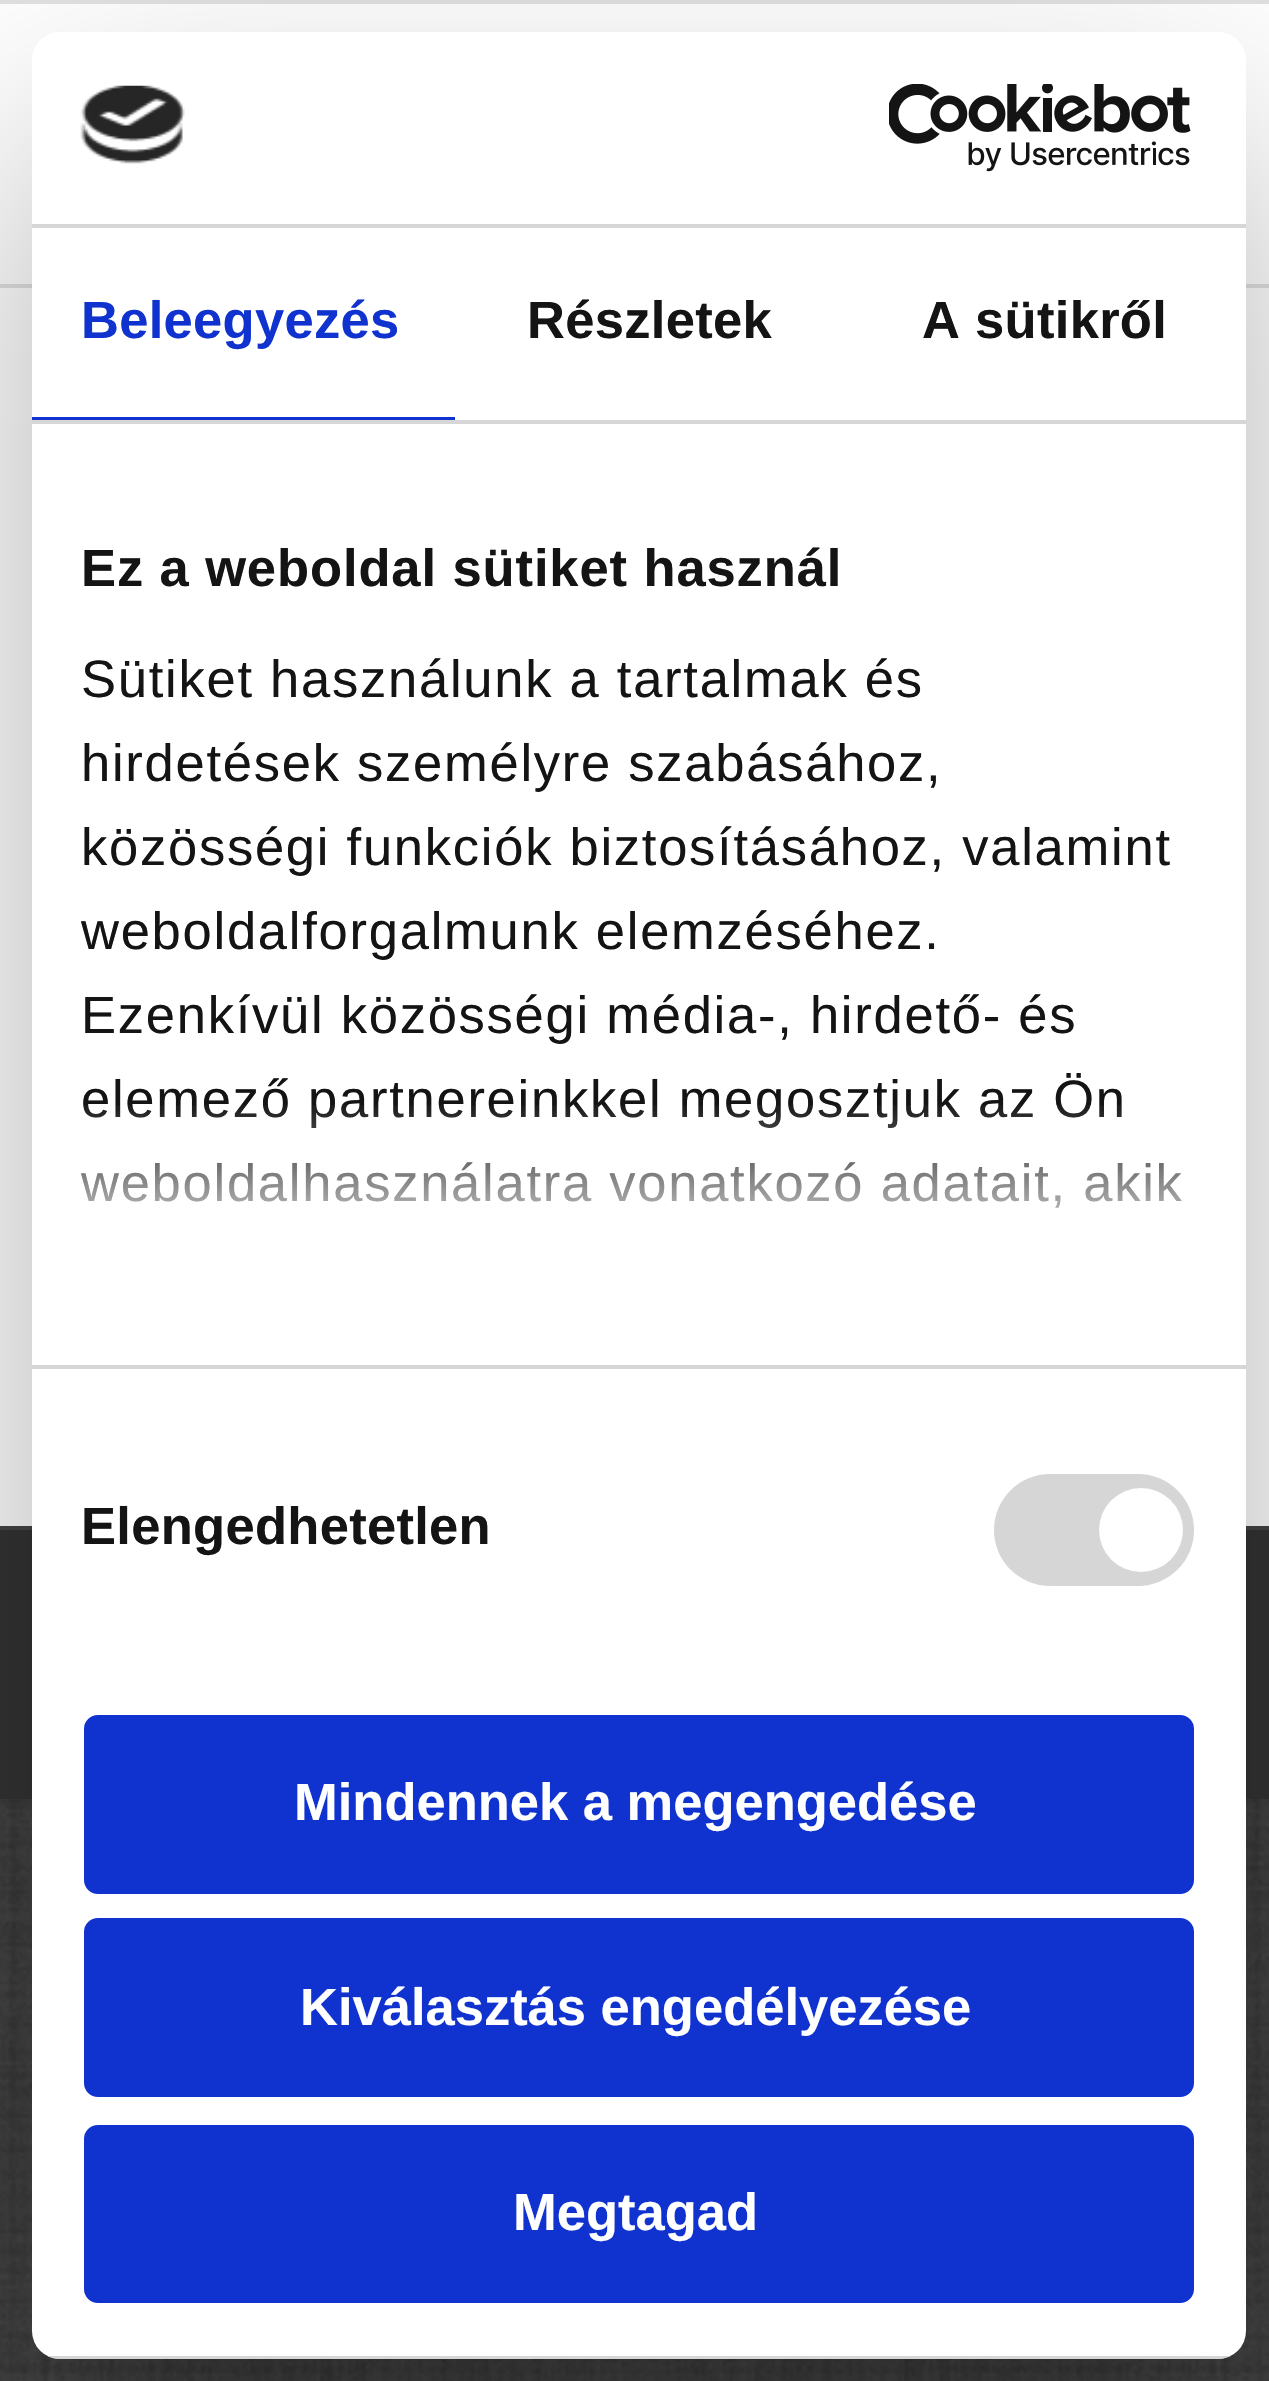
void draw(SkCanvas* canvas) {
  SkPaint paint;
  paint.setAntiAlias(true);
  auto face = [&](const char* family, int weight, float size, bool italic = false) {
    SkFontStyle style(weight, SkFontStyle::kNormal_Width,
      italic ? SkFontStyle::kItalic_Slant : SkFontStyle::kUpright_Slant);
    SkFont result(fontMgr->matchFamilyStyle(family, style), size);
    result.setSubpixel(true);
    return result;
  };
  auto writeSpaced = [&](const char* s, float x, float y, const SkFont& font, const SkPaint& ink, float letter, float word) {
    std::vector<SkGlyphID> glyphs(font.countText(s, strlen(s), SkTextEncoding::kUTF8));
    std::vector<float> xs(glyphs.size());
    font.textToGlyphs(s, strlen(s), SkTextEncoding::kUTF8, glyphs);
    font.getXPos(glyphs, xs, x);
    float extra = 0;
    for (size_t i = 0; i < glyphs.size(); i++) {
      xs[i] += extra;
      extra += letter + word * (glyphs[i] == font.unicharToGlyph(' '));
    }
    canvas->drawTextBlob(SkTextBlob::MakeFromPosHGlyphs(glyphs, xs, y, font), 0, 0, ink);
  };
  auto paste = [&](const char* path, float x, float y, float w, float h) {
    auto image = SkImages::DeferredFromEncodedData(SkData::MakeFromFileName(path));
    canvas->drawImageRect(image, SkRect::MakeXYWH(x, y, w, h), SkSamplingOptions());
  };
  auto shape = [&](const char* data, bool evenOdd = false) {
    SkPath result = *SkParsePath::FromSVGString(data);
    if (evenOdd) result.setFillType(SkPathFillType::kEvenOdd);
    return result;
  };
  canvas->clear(0xff333333);
  paste("img/1.png", 0, 1799, 1269, 582);
  {
    const struct { float x, y, w, h; SkColor color; } items[] = {
      {0, 0, 1269, 4, 0xffe1e1e1},
      {0, 284, 1269, 4, 0xffe1e1e1},
      {0, 4, 1269, 280, 0xffffffff},
      {0, 288, 1269, 1238, 0xffffffff},
      {0, 1526, 1269, 4, 0xff444444},
    };
    for (auto [x, y, w, h, color] : items) {
      paint.setColor(color);
      canvas->drawRect(SkRect::MakeXYWH(x, y, w, h), paint);
    }
  }
  canvas->save();
  canvas->clipPath(shape("M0 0H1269V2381H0ZM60 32H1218C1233.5 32 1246 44.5 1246 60V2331C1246 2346.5 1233.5 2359 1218 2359H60C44.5 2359 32 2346.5 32 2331V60C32 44.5 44.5 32 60 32Z", true), true);
  paint.setColor(0x4d000000);
  paint.setMaskFilter(SkMaskFilter::MakeBlur(kNormal_SkBlurStyle, 119));
  canvas->drawRoundRect(SkRect::MakeXYWH(32, 144, 1214, 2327), 28, 28, paint);
  paint.setMaskFilter(nullptr);
  canvas->restore();
  paint.setColor(0xffffffff);
  canvas->drawRoundRect(SkRect::MakeXYWH(32, 32, 1214, 2327), 28, 28, paint);
  paint.setColor(0xffd6d6d6);
  canvas->drawRect(SkRect::MakeXYWH(32, 224, 1214, 4), paint);
  paste("img/2.png", 80, 85, 105, 79);
  paste("img/3.png", 889, 84, 302, 88);
  {
    const struct { float x, y, w, h; SkColor color; } items[] = {
      {32, 420, 1214, 4, 0xffd6d6d6},
      {32, 417, 423, 3, 0xff1032cf},
      {32, 1365, 1214, 4, 0xffd6d6d6},
    };
    for (auto [x, y, w, h, color] : items) {
      paint.setColor(color);
      canvas->drawRect(SkRect::MakeXYWH(x, y, w, h), paint);
    }
  }
  canvas->drawRoundRect(SkRect::MakeXYWH(994, 1474, 200, 112), 56, 56, paint);
  paint.setColor(0xffffffff);
  canvas->drawCircle(1141, 1530, 42, paint);
  canvas->save();
  canvas->clipPath(shape("M60 32H1218C1233.5 32 1246 44.5 1246 60V2331C1246 2346.5 1233.5 2359 1218 2359H60C44.5 2359 32 2346.5 32 2331V60C32 44.5 44.5 32 60 32Z"), true);
  paint.setColor(0xffd6d6d6);
  canvas->drawRect(SkRect::MakeXYWH(47, 2356, 1184, 3), paint);
  canvas->restore();
  paint.setColor(0xff1032cf);
  canvas->drawRoundRect(SkRect::MakeXYWH(87.5f, 1718.5f, 1103, 172), 10.5f, 10.5f, paint);
  paint.setStroke(true);
  paint.setStrokeWidth(7);
  canvas->drawRoundRect(SkRect::MakeXYWH(87.5f, 1718.5f, 1103, 172), 10.5f, 10.5f, paint);
  paint.setStroke(false);
  canvas->drawRoundRect(SkRect::MakeXYWH(87.5f, 1921.5f, 1103, 172), 10.5f, 10.5f, paint);
  paint.setStroke(true);
  canvas->drawRoundRect(SkRect::MakeXYWH(87.5f, 1921.5f, 1103, 172), 10.5f, 10.5f, paint);
  paint.setStroke(false);
  canvas->drawRoundRect(SkRect::MakeXYWH(87.5f, 2128.5f, 1103, 171), 10.5f, 10.5f, paint);
  paint.setStroke(true);
  canvas->drawRoundRect(SkRect::MakeXYWH(87.5f, 2128.5f, 1103, 171), 10.5f, 10.5f, paint);
  auto f0 = face("Liberation Sans", 700, 52.5f);
  paint.setStroke(false);
  writeSpaced("Beleegyezés", 81, 338, f0, paint, 0.3f, 0);
  paint.setColor(0xff141414);
  writeSpaced("Részletek", 527, 338, f0, paint, 0.3f, 0);
  writeSpaced("A sütikről", 922, 338, f0, paint, 0.3f, 0);
  writeSpaced("Ez a weboldal sütiket használ", 81, 586, f0, paint, 0.9f, 0);
  auto f1 = face("Liberation Sans", 400, 52.5f);
  {
    const struct { const char* s; float x, y; } items[] = {
      {"Sütiket használunk a tartalmak és", 81, 697},
      {"hirdetések személyre szabásához,", 81, 781},
      {"közösségi funkciók biztosításához, valamint", 81, 865},
      {"weboldalforgalmunk elemzéséhez.", 81, 949},
      {"Ezenkívül közösségi média-, hirdető- és", 81, 1033},
      {"elemező partnereinkkel megosztjuk az Ön", 81, 1117},
      {"weboldalhasználatra vonatkozó adatait, akik", 81, 1201},
    };
    for (auto [s, x, y] : items) {
      writeSpaced(s, x, y, f1, paint, 1.75f, 0);
    }
  }
  {
    const SkColor colors[] = {0xffffffff, 0xccffffff, 0x00ffffff};
    const float stops[] = {0, 0.5f, 1};
    const SkPoint ends[] = {{614, 1363}, {614, 1101}};
    paint.setShader(SkGradientShader::MakeLinear(ends, colors, stops, 3, SkTileMode::kClamp));
    paint.setAlpha(255);
  }
  canvas->drawRect(SkRect::MakeXYWH(80, 1105, 1102, 103), paint);
  paint.setShader(nullptr);
  paint.setColor(0xff141414);
  writeSpaced("Elengedhetetlen", 81, 1544, f0, paint, 0.3f, 0);
  paint.setColor(0xffffffff);
  {
    const struct { const char* s; float x, y; } items[] = {
      {"Mindennek a megengedése", 294, 1820},
      {"Kiválasztás engedélyezése", 300, 2025},
      {"Megtagad", 513, 2230},
    };
    for (auto [s, x, y] : items) {
      canvas->drawString(s, x, y, f0, paint);
    }
  }
}
